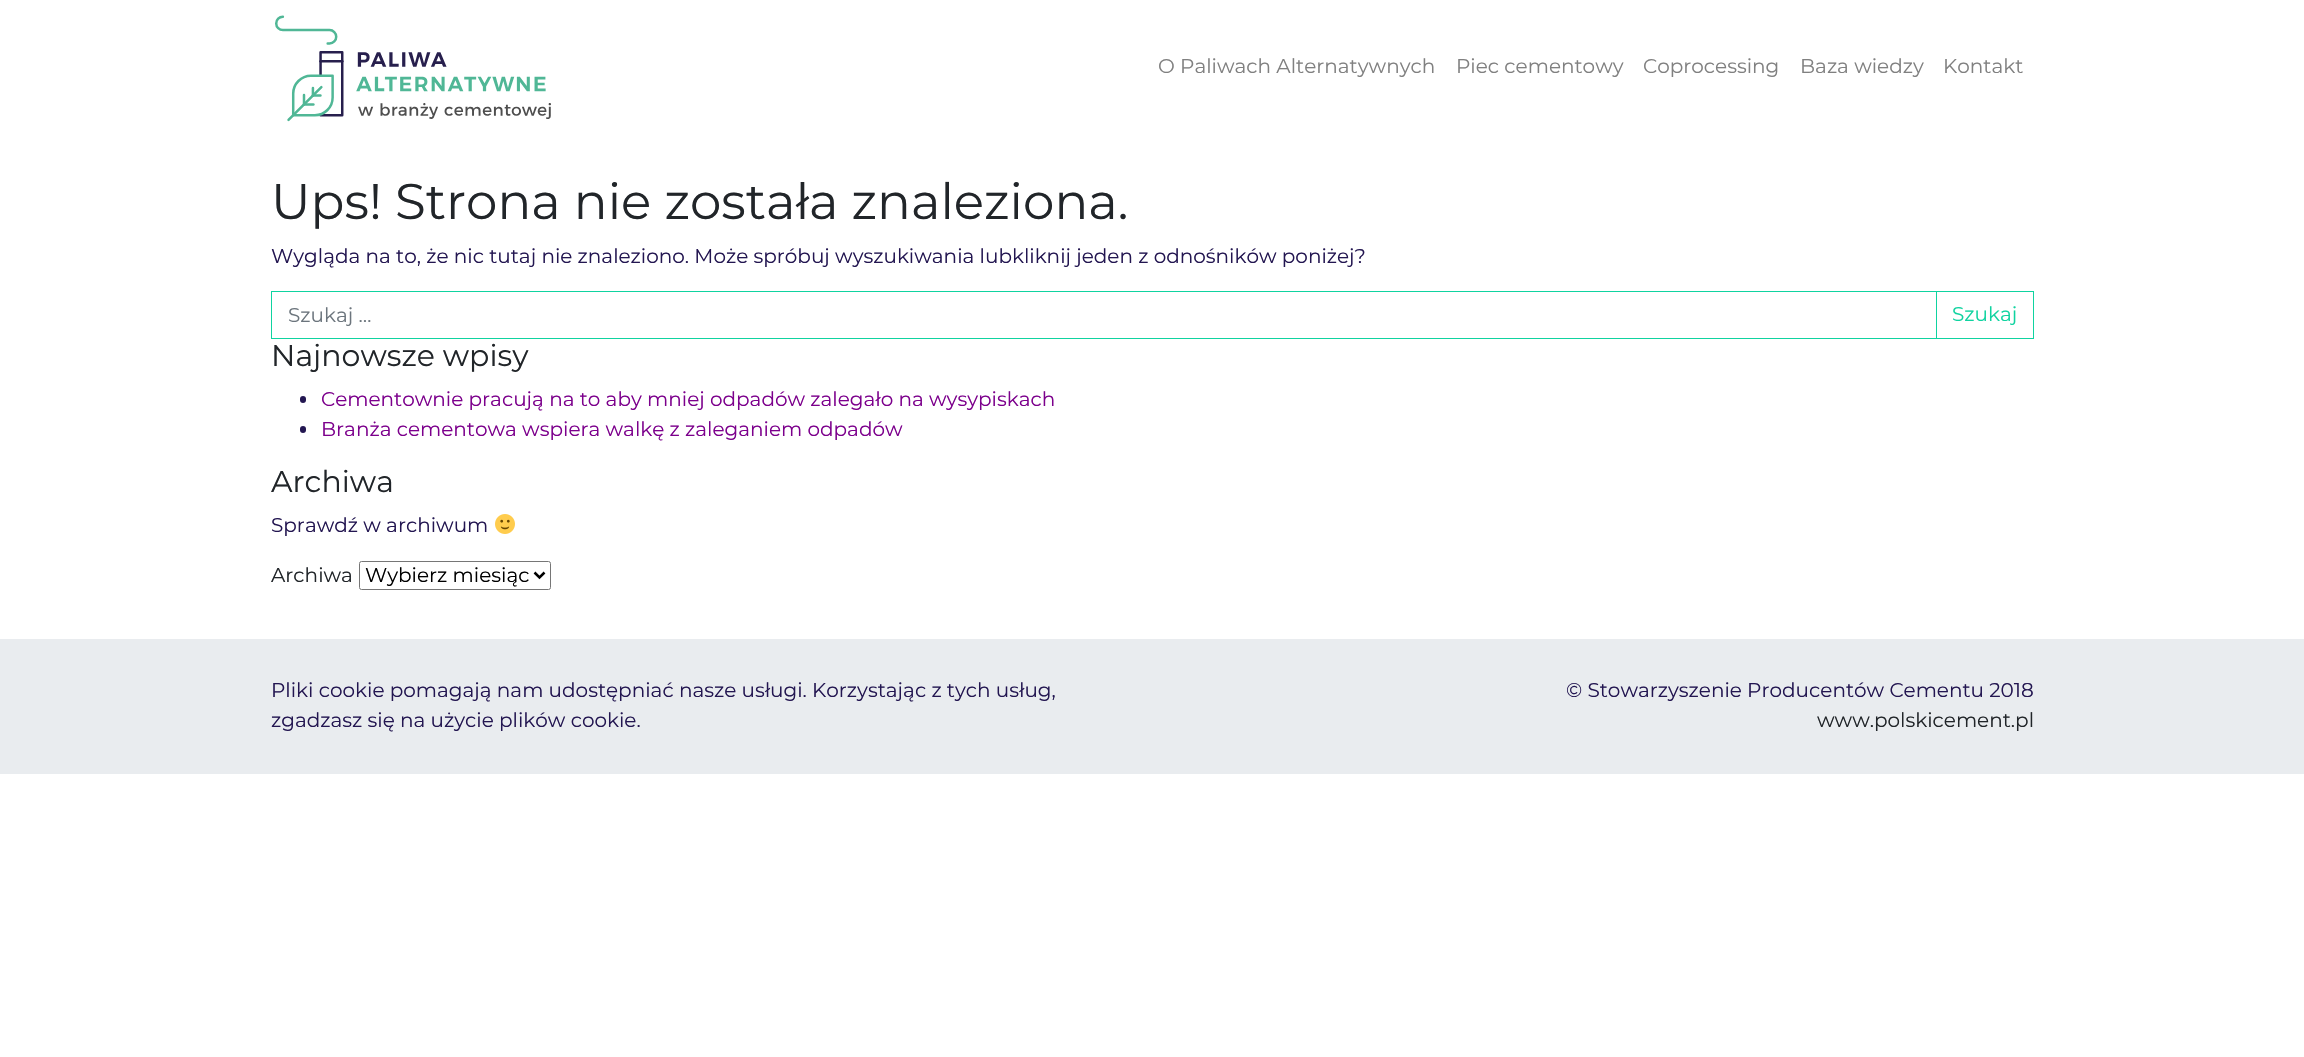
void draw(SkCanvas* canvas) {
  SkPaint paint;
  paint.setAntiAlias(true);
  auto face = [&](const char* family, int weight, float size, bool italic = false) {
    SkFontStyle style(weight, SkFontStyle::kNormal_Width,
      italic ? SkFontStyle::kItalic_Slant : SkFontStyle::kUpright_Slant);
    SkFont result(fontMgr->matchFamilyStyle(family, style), size);
    result.setSubpixel(true);
    return result;
  };
  auto paste = [&](const char* path, float x, float y, float w, float h) {
    auto image = SkImages::DeferredFromEncodedData(SkData::MakeFromFileName(path));
    canvas->drawImageRect(image, SkRect::MakeXYWH(x, y, w, h), SkSamplingOptions());
  };
  auto shape = [&](const char* data, bool evenOdd = false) {
    SkPath result = *SkParsePath::FromSVGString(data);
    if (evenOdd) result.setFillType(SkPathFillType::kEvenOdd);
    return result;
  };
  canvas->clear(0xffffffff);
  paste("img/1.png", 275, 15, 276, 107);
  paint.setStroke(true);
  paint.setStrokeWidth(1);
  paint.setColor(0xff0fd3a0);
  canvas->drawRect(SkRect::MakeXYWH(271.5f, 291.5f, 1666, 47), paint);
  paint.setStroke(false);
  paint.setColor(0xffffffff);
  canvas->drawRect(SkRect::MakeXYWH(1937, 292, 1, 46), paint);
  paint.setStroke(true);
  paint.setColor(0xff0fd3a0);
  canvas->drawRect(SkRect::MakeXYWH(1936.5f, 291.5f, 97, 47), paint);
  paint.setStroke(false);
  paint.setColor(0xff231651);
  canvas->drawRoundRect(SkRect::MakeXYWH(300, 396, 6, 7), 3, 3, paint);
  canvas->drawRoundRect(SkRect::MakeXYWH(300, 426, 6, 7), 3, 3, paint);
  paste("img/2.png", 495, 514, 20, 20);
  paint.setStroke(true);
  paint.setColor(0xff767676);
  canvas->drawRoundRect(SkRect::MakeXYWH(359.5f, 561.5f, 191, 28), 2, 2, paint);
  paint.setStrokeWidth(2.5f);
  paint.setColor(0xff000000);
  canvas->drawPath(shape("M534.5 572.5L539.5 577.5L544.5 572.5"), paint);
  paint.setStroke(false);
  paint.setColor(0xffe9ecef);
  canvas->drawRect(SkRect::MakeXYWH(0, 639, 2304, 135), paint);
  auto f0 = face("Montserrat", 400, 20);
  paint.setColor(0xff808080);
  {
    const struct { const char* s; float x, y; } items[] = {
      {"O Paliwach Alternatywnych", 1158, 73},
      {"Piec cementowy", 1456, 73},
      {"Coprocessing", 1643, 73},
      {"Baza wiedzy", 1800, 73},
      {"Kontakt", 1943, 73},
    };
    for (auto [s, x, y] : items) {
      canvas->drawString(s, x, y, f0, paint);
    }
  }
  auto f1 = face("Montserrat", 400, 50);
  paint.setColor(0xff212529);
  canvas->drawString("Ups! Strona nie została znaleziona.", 271, 219, f1, paint);
  paint.setColor(0xff231651);
  canvas->drawString("Wygląda na to, że nic tutaj nie znaleziono. Może spróbuj wyszukiwania lubkliknij jeden z odnośników poniżej?", 271, 263, f0, paint);
  paint.setColor(0xff6c757d);
  canvas->drawString("Szukaj …", 288, 322, f0, paint);
  paint.setColor(0xff0fd3a0);
  canvas->drawString("Szukaj", 1952, 321, f0, paint);
  auto f2 = face("Montserrat", 400, 30);
  paint.setColor(0xff212529);
  canvas->drawString("Najnowsze wpisy", 271, 366, f2, paint);
  paint.setColor(0xff7c008c);
  canvas->drawString("Cementownie pracują na to aby mniej odpadów zalegało na wysypiskach", 321, 406, f0, paint);
  canvas->drawString("Branża cementowa wspiera walkę z zaleganiem odpadów", 321, 436, f0, paint);
  paint.setColor(0xff212529);
  canvas->drawString("Archiwa", 271, 492, f2, paint);
  paint.setColor(0xff231651);
  canvas->drawString("Sprawdź w archiwum", 271, 532, f0, paint);
  paint.setColor(0xff212529);
  canvas->drawString("Archiwa", 271, 582, f0, paint);
  paint.setColor(0xff000000);
  canvas->drawString("Wybierz miesiąc", 365, 582, f0, paint);
  paint.setColor(0xff231651);
  {
    const struct { const char* s; float x, y; } items[] = {
      {"Pliki cookie pomagają nam udostępniać nasze usługi. Korzystając z tych usług,", 271, 697},
      {"zgadzasz się na użycie plików cookie.", 271, 727},
      {"© Stowarzyszenie Producentów Cementu 2018", 1566, 697},
    };
    for (auto [s, x, y] : items) {
      canvas->drawString(s, x, y, f0, paint);
    }
  }
  paint.setColor(0xff212529);
  canvas->drawString("www.polskicement.pl", 1817, 727, f0, paint);
}
